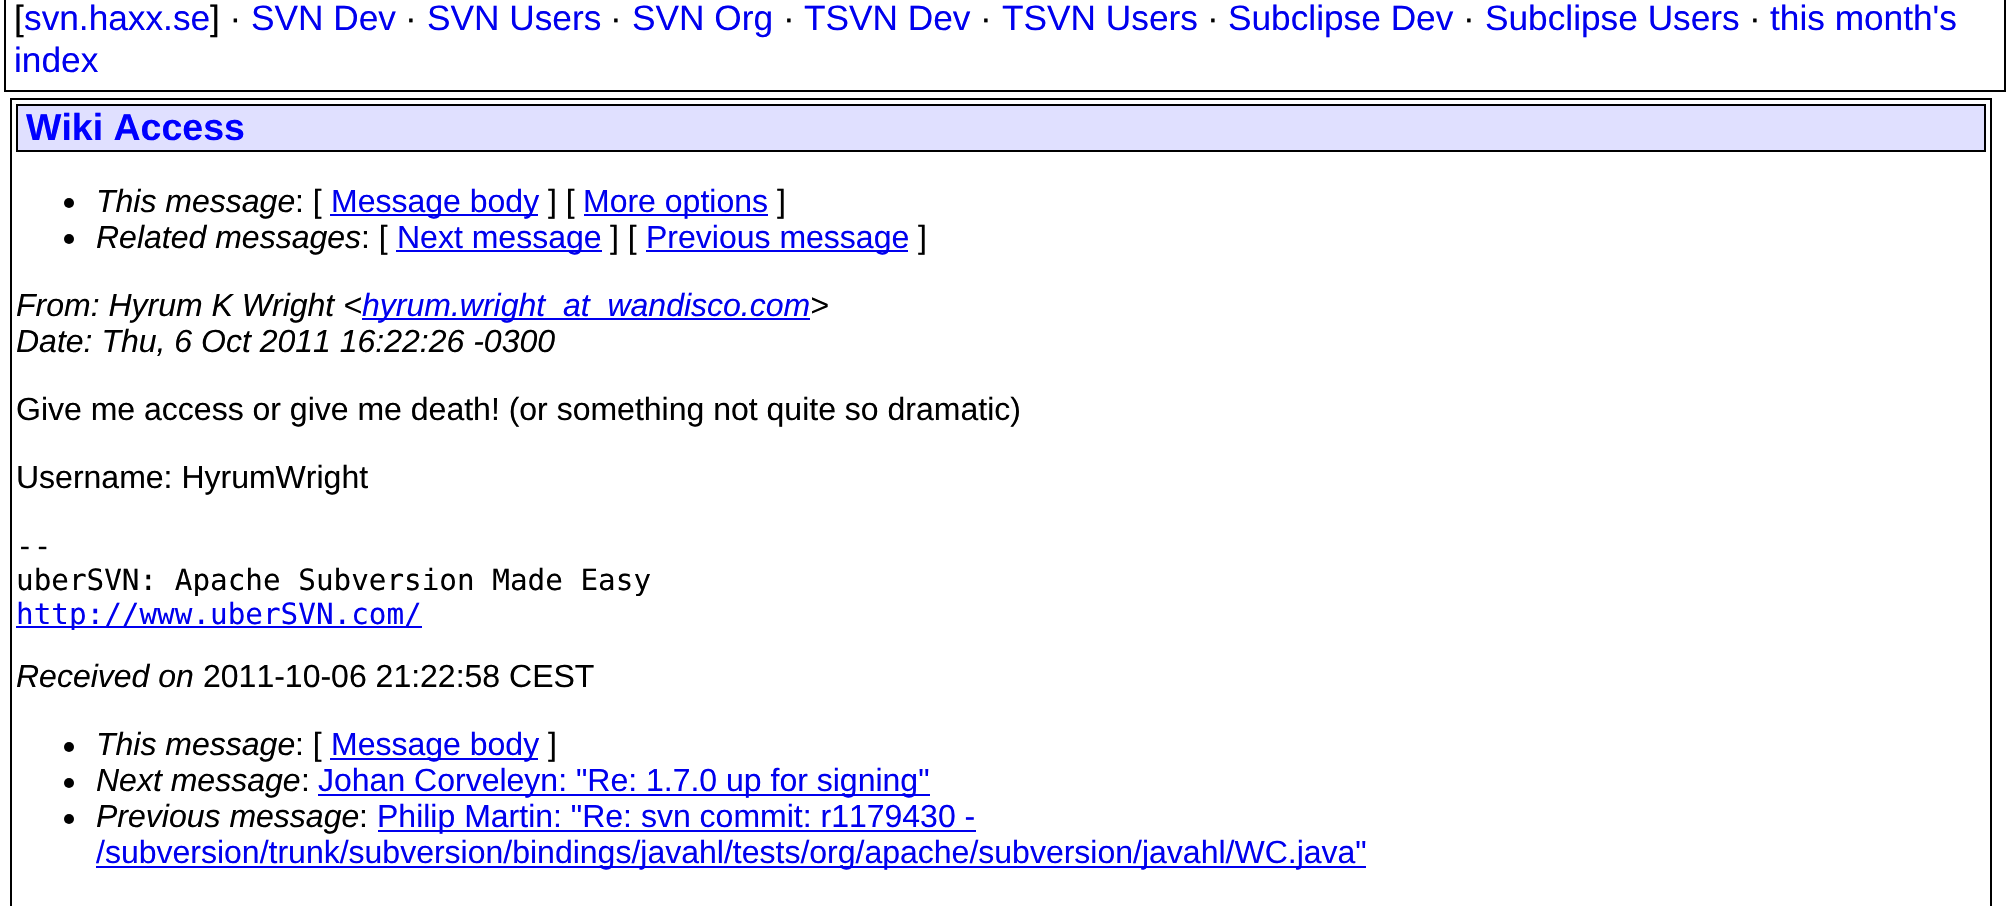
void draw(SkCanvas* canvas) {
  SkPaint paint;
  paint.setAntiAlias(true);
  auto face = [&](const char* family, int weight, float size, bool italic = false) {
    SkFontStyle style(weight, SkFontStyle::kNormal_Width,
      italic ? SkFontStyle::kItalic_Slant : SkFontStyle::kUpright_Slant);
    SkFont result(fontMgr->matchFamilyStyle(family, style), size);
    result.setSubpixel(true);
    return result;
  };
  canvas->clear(0xffffffff);
  paint.setStroke(true);
  paint.setStrokeWidth(2);
  paint.setColor(0xff000000);
  canvas->drawRect(SkRect::MakeXYWH(5, -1, 2000, 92), paint);
  canvas->drawRect(SkRect::MakeXYWH(11, 99, 1980, 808), paint);
  paint.setStroke(false);
  paint.setColor(0xffe0e0ff);
  canvas->drawRect(SkRect::MakeXYWH(17, 105, 1968, 46), paint);
  paint.setStroke(true);
  paint.setColor(0xff000000);
  canvas->drawRect(SkRect::MakeXYWH(17, 105, 1968, 46), paint);
  paint.setStroke(false);
  canvas->drawCircle(69, 203, 5, paint);
  paint.setColor(0xff0000ee);
  canvas->drawRect(SkRect::MakeXYWH(330, 214, 208, 2), paint);
  canvas->drawRect(SkRect::MakeXYWH(584, 214, 184, 2), paint);
  paint.setColor(0xff000000);
  canvas->drawCircle(69, 239, 5, paint);
  {
    const struct { float x, y, w, h; SkColor color; } items[] = {
      {396, 250, 206, 2, 0xff0000ee},
      {646, 250, 262, 2, 0xff0000ee},
      {362, 318, 448, 2, 0xff0000ee},
      {16, 626, 406, 2, 0xff0000ee},
    };
    for (auto [x, y, w, h, color] : items) {
      paint.setColor(color);
      canvas->drawRect(SkRect::MakeXYWH(x, y, w, h), paint);
    }
  }
  paint.setColor(0xff000000);
  canvas->drawCircle(69, 747, 5, paint);
  paint.setColor(0xff0000ee);
  canvas->drawRect(SkRect::MakeXYWH(330, 758, 208, 2), paint);
  paint.setColor(0xff000000);
  canvas->drawCircle(69, 783, 5, paint);
  paint.setColor(0xff0000ee);
  canvas->drawRect(SkRect::MakeXYWH(318, 794, 612, 2), paint);
  paint.setColor(0xff000000);
  canvas->drawCircle(69, 819, 5, paint);
  paint.setColor(0xff0000ee);
  canvas->drawRect(SkRect::MakeXYWH(378, 830, 598, 2), paint);
  canvas->drawRect(SkRect::MakeXYWH(96, 866, 1270, 2), paint);
  auto f0 = face("Liberation Sans", 400, 35.25f);
  paint.setColor(0xff000000);
  canvas->drawString("[", 14, 30, f0, paint);
  paint.setColor(0xff0000ee);
  canvas->drawString("svn.haxx.se", 24, 30, f0, paint);
  paint.setColor(0xff000000);
  canvas->drawString("] ·", 210, 30, f0, paint);
  paint.setColor(0xff0000ee);
  canvas->drawString("SVN Dev", 251, 30, f0, paint);
  paint.setColor(0xff000000);
  canvas->drawString("·", 405, 30, f0, paint);
  paint.setColor(0xff0000ee);
  canvas->drawString("SVN Users", 427, 30, f0, paint);
  paint.setColor(0xff000000);
  canvas->drawString("·", 610, 30, f0, paint);
  paint.setColor(0xff0000ee);
  canvas->drawString("SVN Org", 632, 30, f0, paint);
  paint.setColor(0xff000000);
  canvas->drawString("·", 783, 30, f0, paint);
  paint.setColor(0xff0000ee);
  canvas->drawString("TSVN Dev", 804, 30, f0, paint);
  paint.setColor(0xff000000);
  canvas->drawString("·", 980, 30, f0, paint);
  paint.setColor(0xff0000ee);
  canvas->drawString("TSVN Users", 1002, 30, f0, paint);
  paint.setColor(0xff000000);
  canvas->drawString("·", 1207, 30, f0, paint);
  paint.setColor(0xff0000ee);
  canvas->drawString("Subclipse Dev", 1228, 30, f0, paint);
  paint.setColor(0xff000000);
  canvas->drawString("·", 1463, 30, f0, paint);
  paint.setColor(0xff0000ee);
  canvas->drawString("Subclipse Users", 1485, 30, f0, paint);
  paint.setColor(0xff000000);
  canvas->drawString("·", 1749, 30, f0, paint);
  paint.setColor(0xff0000ee);
  canvas->drawString("this month's", 1770, 30, f0, paint);
  canvas->drawString("index", 14, 72, f0, paint);
  auto f1 = face("Liberation Sans", 700, 37.5f);
  paint.setColor(0xff0000ff);
  canvas->drawString("Wiki Access", 26, 140, f1, paint);
  auto f2 = face("Liberation Sans", 400, 32, true);
  paint.setColor(0xff000000);
  canvas->drawString("This message", 96, 212, f2, paint);
  auto f3 = face("Liberation Sans", 400, 32);
  canvas->drawString(": [", 295, 212, f3, paint);
  paint.setColor(0xff0000ee);
  canvas->drawString("Message body", 331, 212, f3, paint);
  paint.setColor(0xff000000);
  canvas->drawString("] [", 548, 212, f3, paint);
  paint.setColor(0xff0000ee);
  canvas->drawString("More options", 583, 212, f3, paint);
  paint.setColor(0xff000000);
  canvas->drawString("]", 777, 212, f3, paint);
  canvas->drawString("Related messages", 96, 248, f2, paint);
  canvas->drawString(": [", 361, 248, f3, paint);
  paint.setColor(0xff0000ee);
  canvas->drawString("Next message", 397, 248, f3, paint);
  paint.setColor(0xff000000);
  canvas->drawString("] [", 610, 248, f3, paint);
  paint.setColor(0xff0000ee);
  canvas->drawString("Previous message", 646, 248, f3, paint);
  paint.setColor(0xff000000);
  canvas->drawString("]", 918, 248, f3, paint);
  canvas->drawString("From: Hyrum K Wright <", 16, 316, f2, paint);
  paint.setColor(0xff0000ee);
  canvas->drawString("hyrum.wright_at_wandisco.com", 362, 316, f2, paint);
  paint.setColor(0xff000000);
  canvas->drawString(">", 810, 316, f2, paint);
  canvas->drawString("Date: Thu, 6 Oct 2011 16:22:26 -0300", 16, 352, f2, paint);
  canvas->drawString("Give me access or give me death! (or something not quite so dramatic)", 16, 420, f3, paint);
  canvas->drawString("Username: HyrumWright", 16, 488, f3, paint);
  auto f4 = face("DejaVu Sans Mono", 400, 29.3f);
  canvas->drawString("--", 16, 556, f4, paint);
  canvas->drawString("uberSVN: Apache Subversion Made Easy", 16, 590, f4, paint);
  paint.setColor(0xff0000ee);
  canvas->drawString("http://www.uberSVN.com/", 16, 624, f4, paint);
  paint.setColor(0xff000000);
  canvas->drawString("Received on", 16, 687, f2, paint);
  canvas->drawString("2011-10-06 21:22:58 CEST", 203, 687, f3, paint);
  canvas->drawString("This message", 96, 755, f2, paint);
  canvas->drawString(": [", 295, 755, f3, paint);
  paint.setColor(0xff0000ee);
  canvas->drawString("Message body", 331, 755, f3, paint);
  paint.setColor(0xff000000);
  canvas->drawString("]", 548, 755, f3, paint);
  canvas->drawString("Next message", 96, 791, f2, paint);
  canvas->drawString(":", 301, 791, f3, paint);
  paint.setColor(0xff0000ee);
  canvas->drawString("Johan Corveleyn: \"Re: 1.7.0 up for signing\"", 318, 791, f3, paint);
  paint.setColor(0xff000000);
  canvas->drawString("Previous message", 96, 827, f2, paint);
  canvas->drawString(":", 359, 827, f3, paint);
  paint.setColor(0xff0000ee);
  canvas->drawString("Philip Martin: \"Re: svn commit: r1179430 -", 377, 827, f3, paint);
  canvas->drawString("/subversion/trunk/subversion/bindings/javahl/tests/org/apache/subversion/javahl/WC.java\"", 96, 863, f3, paint);
}
